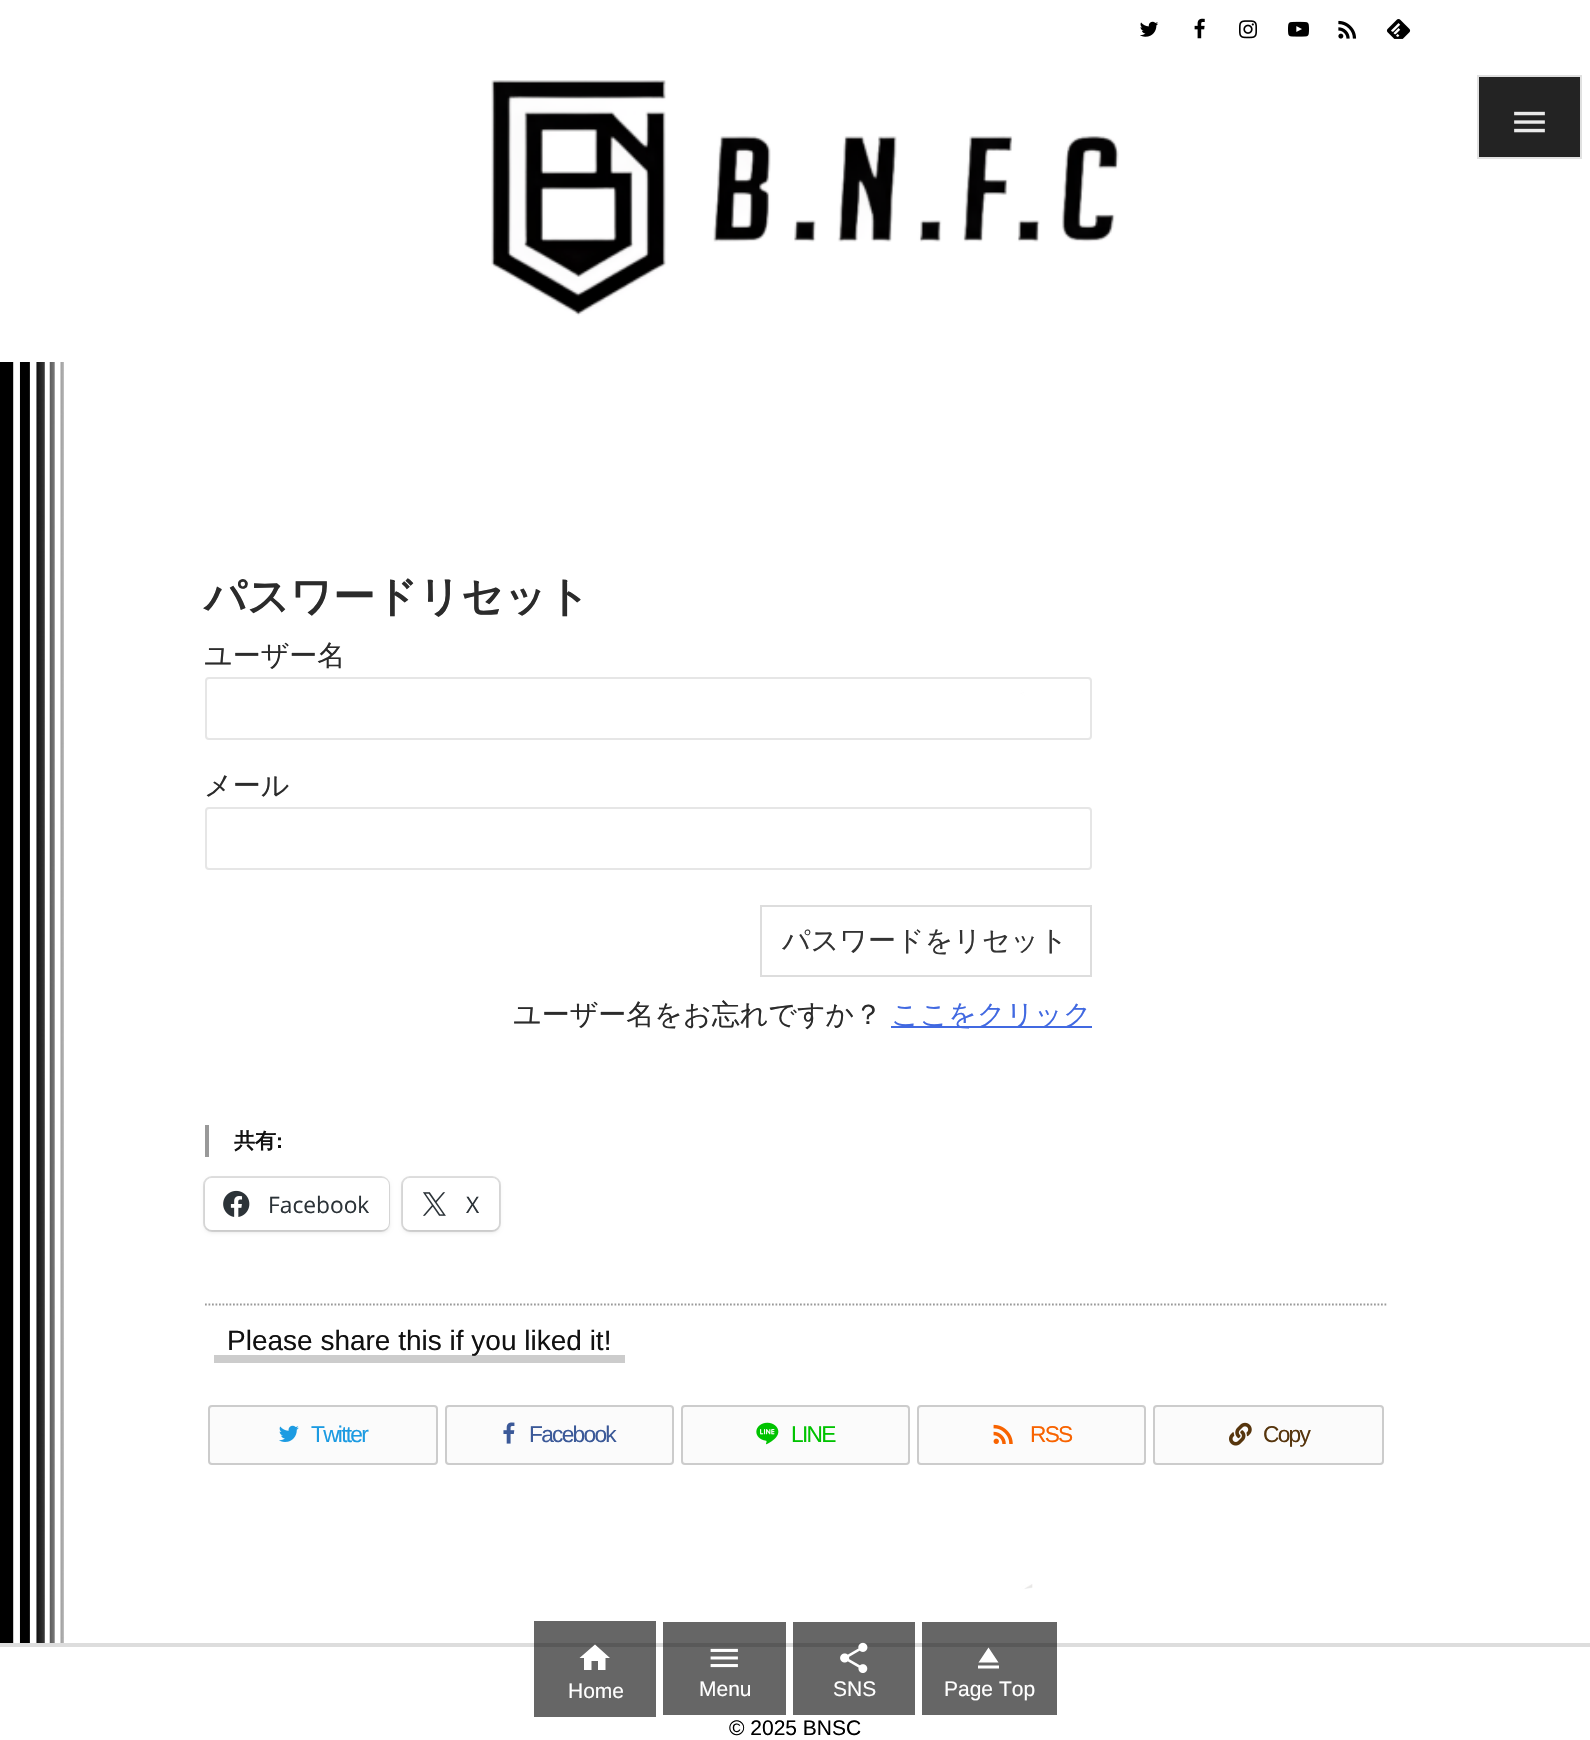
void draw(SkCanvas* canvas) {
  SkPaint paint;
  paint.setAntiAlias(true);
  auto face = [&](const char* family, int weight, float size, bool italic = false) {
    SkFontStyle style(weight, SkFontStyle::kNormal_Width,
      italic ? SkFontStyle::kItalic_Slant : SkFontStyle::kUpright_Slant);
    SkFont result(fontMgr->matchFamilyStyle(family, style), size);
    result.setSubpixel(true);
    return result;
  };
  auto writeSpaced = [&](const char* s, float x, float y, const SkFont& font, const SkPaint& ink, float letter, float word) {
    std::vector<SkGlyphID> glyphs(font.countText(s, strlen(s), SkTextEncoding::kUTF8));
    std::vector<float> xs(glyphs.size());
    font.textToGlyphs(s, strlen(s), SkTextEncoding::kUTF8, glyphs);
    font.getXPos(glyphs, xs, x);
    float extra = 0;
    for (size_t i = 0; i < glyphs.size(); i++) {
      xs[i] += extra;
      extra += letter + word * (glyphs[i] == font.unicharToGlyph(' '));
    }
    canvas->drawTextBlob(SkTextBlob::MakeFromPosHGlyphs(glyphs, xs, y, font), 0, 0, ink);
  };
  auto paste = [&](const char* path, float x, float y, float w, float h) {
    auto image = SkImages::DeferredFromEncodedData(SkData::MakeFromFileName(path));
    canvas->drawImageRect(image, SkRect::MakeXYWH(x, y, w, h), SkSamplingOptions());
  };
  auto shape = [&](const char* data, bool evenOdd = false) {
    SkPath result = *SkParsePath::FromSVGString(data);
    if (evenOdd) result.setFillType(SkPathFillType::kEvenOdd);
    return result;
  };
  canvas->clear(0xffffffff);
  paste("img/1.png", 491, 80, 628, 236);
  paste("img/2.png", 1140, 21, 19, 16);
  paste("img/3.png", 1194, 18, 11, 21);
  paste("img/4.png", 1239, 20, 18, 19);
  paste("img/5.png", 1288, 21, 21, 16);
  paste("img/6.png", 1338, 20, 19, 19);
  paste("img/7.png", 1386, 19, 25, 20);
  paint.setColor(0xff232323);
  canvas->drawRect(SkRect::MakeXYWH(1478, 76, 103, 82), paint);
  paint.setStroke(true);
  paint.setStrokeWidth(2);
  paint.setColor(0xffe0e0e0);
  canvas->drawRect(SkRect::MakeXYWH(1478, 76, 103, 82), paint);
  paste("img/8.png", 1514, 111, 31, 22);
  paste("img/9.png", 0, 362, 1033, 1281);
  paint.setStroke(false);
  paint.setColor(0xffffffff);
  canvas->drawRect(SkRect::MakeXYWH(1024, 689, 9, 6), paint);
  paint.setStroke(true);
  paint.setColor(0xffe6e6e6);
  canvas->drawRoundRect(SkRect::MakeXYWH(206, 678, 885, 61), 3, 3, paint);
  canvas->drawRoundRect(SkRect::MakeXYWH(206, 808, 885, 61), 3, 3, paint);
  paint.setColor(0xffdddddd);
  canvas->drawRect(SkRect::MakeXYWH(761, 906, 330, 70), paint);
  paint.setStroke(false);
  paint.setColor(0xff4169e1);
  canvas->drawRect(SkRect::MakeXYWH(891, 1026, 201, 2), paint);
  paint.setColor(0xff999999);
  canvas->drawRect(SkRect::MakeXYWH(205, 1125, 4, 32), paint);
  paint.setStroke(true);
  paint.setColor(0xffe0e0e0);
  canvas->drawRoundRect(SkRect::MakeXYWH(204, 1177, 185, 54), 8, 8, paint);
  paint.setStroke(false);
  paint.setColor(0x1f000000);
  paint.setMaskFilter(SkMaskFilter::MakeBlur(kNormal_SkBlurStyle, 2));
  canvas->drawRoundRect(SkRect::MakeXYWH(205, 1180, 184, 52), 7, 7, paint);
  paint.setMaskFilter(nullptr);
  paint.setColor(0xffffffff);
  canvas->drawRoundRect(SkRect::MakeXYWH(205, 1178, 184, 52), 7, 7, paint);
  paste("img/10.png", 223, 1190, 27, 27);
  paint.setStroke(true);
  paint.setColor(0xffe0e0e0);
  canvas->drawRoundRect(SkRect::MakeXYWH(402, 1177, 98, 54), 8, 8, paint);
  paint.setStroke(false);
  paint.setColor(0x1f000000);
  paint.setMaskFilter(SkMaskFilter::MakeBlur(kNormal_SkBlurStyle, 2));
  canvas->drawRoundRect(SkRect::MakeXYWH(403, 1180, 96, 52), 7, 7, paint);
  paint.setMaskFilter(nullptr);
  paint.setColor(0xffffffff);
  canvas->drawRoundRect(SkRect::MakeXYWH(403, 1178, 96, 52), 7, 7, paint);
  paste("img/11.png", 423, 1192, 23, 24);
  paint.setStroke(true);
  paint.setStrokeWidth(1.8f);
  paint.setColor(0xff999999);
  paint.setPathEffect(SkDashPathEffect::Make({{1.75f, 1.75f}}, 0));
  canvas->drawPath(shape("M205 1304.5H1388"), paint);
  paint.setPathEffect(nullptr);
  paint.setStroke(false);
  paint.setColor(0xffcccccc);
  canvas->drawRect(SkRect::MakeXYWH(214, 1355, 411, 8), paint);
  paint.setColor(0xfffbfbfb);
  canvas->drawRoundRect(SkRect::MakeXYWH(209, 1406, 228, 58), 3, 3, paint);
  paint.setStroke(true);
  paint.setStrokeWidth(2);
  paint.setColor(0xffcccccc);
  canvas->drawRoundRect(SkRect::MakeXYWH(209, 1406, 228, 58), 3, 3, paint);
  paste("img/12.png", 279, 1425, 20, 17);
  paint.setStroke(false);
  paint.setColor(0xfffbfbfb);
  canvas->drawRoundRect(SkRect::MakeXYWH(446, 1406, 227, 58), 3, 3, paint);
  paint.setStroke(true);
  paint.setColor(0xffcccccc);
  canvas->drawRoundRect(SkRect::MakeXYWH(446, 1406, 227, 58), 3, 3, paint);
  paste("img/13.png", 503, 1422, 12, 22);
  paint.setStroke(false);
  paint.setColor(0xfffbfbfb);
  canvas->drawRoundRect(SkRect::MakeXYWH(682, 1406, 227, 58), 3, 3, paint);
  paint.setStroke(true);
  paint.setColor(0xffcccccc);
  canvas->drawRoundRect(SkRect::MakeXYWH(682, 1406, 227, 58), 3, 3, paint);
  paste("img/14.png", 756, 1422, 23, 23);
  paint.setStroke(false);
  paint.setColor(0xfffbfbfb);
  canvas->drawRoundRect(SkRect::MakeXYWH(918, 1406, 227, 58), 3, 3, paint);
  paint.setStroke(true);
  paint.setColor(0xffcccccc);
  canvas->drawRoundRect(SkRect::MakeXYWH(918, 1406, 227, 58), 3, 3, paint);
  paste("img/15.png", 993, 1424, 20, 20);
  paint.setStroke(false);
  paint.setColor(0xfffbfbfb);
  canvas->drawRoundRect(SkRect::MakeXYWH(1154, 1406, 229, 58), 3, 3, paint);
  paint.setStroke(true);
  paint.setColor(0xffcccccc);
  canvas->drawRoundRect(SkRect::MakeXYWH(1154, 1406, 229, 58), 3, 3, paint);
  paste("img/16.png", 1229, 1422, 23, 24);
  paint.setStroke(false);
  paint.setColor(0xffdddddd);
  canvas->drawRect(SkRect::MakeXYWH(0, 1643, 1590, 4), paint);
  paint.setColor(0x99000000);
  canvas->drawRect(SkRect::MakeXYWH(534, 1621, 122, 96), paint);
  paint.setColor(0xffffffff);
  canvas->drawPath(shape("M591.5 1670H584V1658H579.5L595 1644.5L610 1658H605.5V1670H598V1661H591.5Z"), paint);
  paint.setColor(0x99000000);
  canvas->drawRect(SkRect::MakeXYWH(663, 1622, 123, 93), paint);
  paste("img/17.png", 710, 1648, 28, 20);
  canvas->drawRect(SkRect::MakeXYWH(793, 1622, 122, 93), paint);
  paste("img/18.png", 840, 1642, 28, 31);
  canvas->drawRect(SkRect::MakeXYWH(922, 1622, 135, 93), paint);
  paint.setColor(0xffffffff);
  canvas->drawPath(shape("M988.5 1647.5L998.5 1662.5H978.5ZM978 1665.5H999V1668.5H978Z"), paint);
  auto f0 = face("WenQuanYi Zen Hei", 700, 42);
  paint.setColor(0xff2b2b2b);
  canvas->drawString("パスワードリセット", 204, 611, f0, paint);
  auto f1 = face("WenQuanYi Zen Hei", 500, 28);
  canvas->drawString("ユーザー名", 204, 665, f1, paint);
  canvas->drawString("メール", 204, 795, f1, paint);
  paint.setColor(0xff333333);
  canvas->drawString("パスワードをリセット", 782, 950, f1, paint);
  paint.setColor(0xff2b2b2b);
  canvas->drawString("ユーザー名をお忘れですか？", 513, 1024, f1, paint);
  paint.setColor(0xff4169e1);
  canvas->drawString("ここをクリック", 891, 1024, f1, paint);
  auto f2 = face("WenQuanYi Zen Hei", 700, 21);
  paint.setColor(0xff111111);
  canvas->drawString("共有", 234, 1148, f2, paint);
  auto f3 = face("Liberation Sans", 700, 21);
  canvas->drawString(":", 276, 1148, f3, paint);
  auto f4 = face("Open Sans", 400, 22.75f);
  paint.setColor(0xff2c3338);
  canvas->drawString("Facebook", 268, 1213, f4, paint);
  canvas->drawString("X", 466, 1213, f4, paint);
  auto f5 = face("Liberation Sans", 400, 28);
  paint.setColor(0xff111111);
  canvas->drawString("Please share this if you liked it!", 227, 1350, f5, paint);
  auto f6 = face("Liberation Sans", 400, 22.75f);
  paint.setColor(0xff1c9be2);
  writeSpaced("Twitter", 311, 1442, f6, paint, -1.75f, 0);
  paint.setColor(0xff3b5998);
  writeSpaced("Facebook", 529, 1442, f6, paint, -1.75f, 0);
  paint.setColor(0xff00c300);
  writeSpaced("LINE", 791, 1442, f6, paint, -1.75f, 0);
  paint.setColor(0xfff86300);
  writeSpaced("RSS", 1030, 1442, f6, paint, -1.75f, 0);
  paint.setColor(0xff56350d);
  writeSpaced("Copy", 1263, 1442, f6, paint, -1.75f, 0);
  auto f7 = face("Liberation Sans", 400, 21);
  paint.setColor(0xffffffff);
  {
    const struct { const char* s; float x, y; } items[] = {
      {"Home", 568, 1698},
      {"Menu", 699, 1696},
      {"SNS", 833, 1696},
      {"Page Top", 944, 1696},
    };
    for (auto [s, x, y] : items) {
      canvas->drawString(s, x, y, f7, paint);
    }
  }
  paint.setColor(0xff000000);
  canvas->drawString("© 2025 BNSC", 729, 1735, f7, paint);
}
